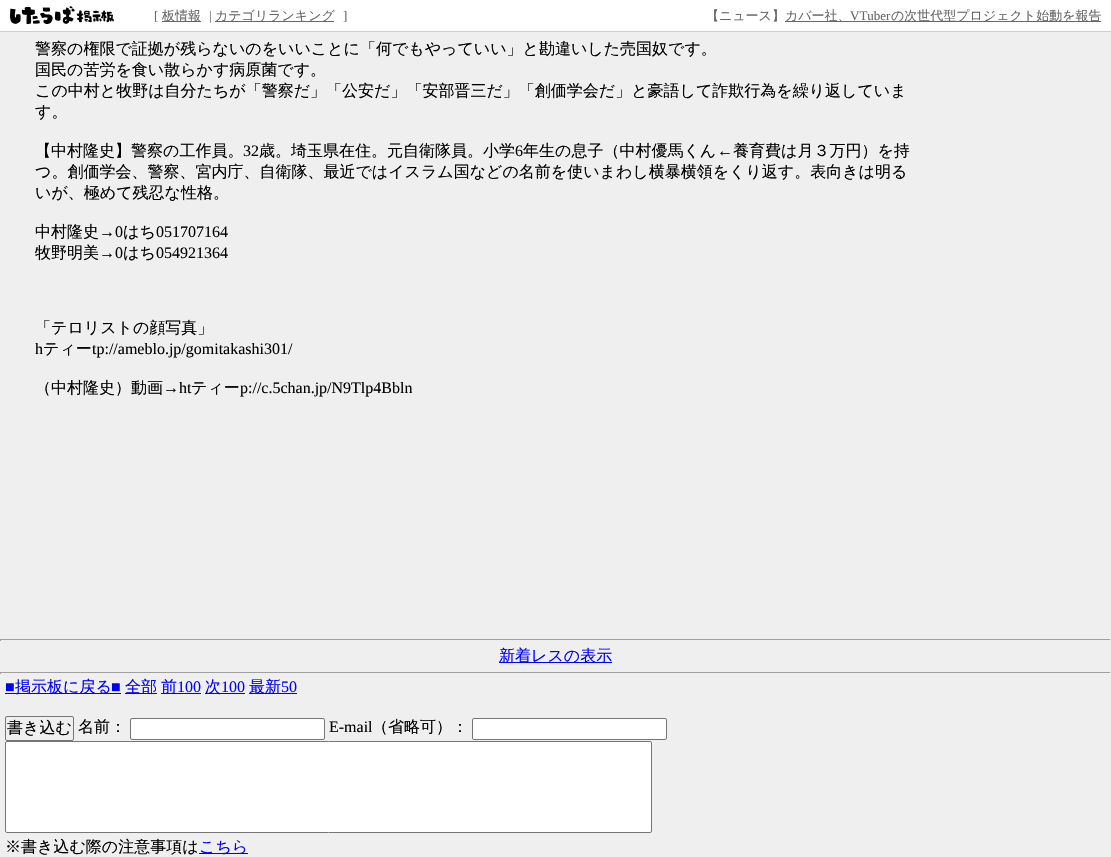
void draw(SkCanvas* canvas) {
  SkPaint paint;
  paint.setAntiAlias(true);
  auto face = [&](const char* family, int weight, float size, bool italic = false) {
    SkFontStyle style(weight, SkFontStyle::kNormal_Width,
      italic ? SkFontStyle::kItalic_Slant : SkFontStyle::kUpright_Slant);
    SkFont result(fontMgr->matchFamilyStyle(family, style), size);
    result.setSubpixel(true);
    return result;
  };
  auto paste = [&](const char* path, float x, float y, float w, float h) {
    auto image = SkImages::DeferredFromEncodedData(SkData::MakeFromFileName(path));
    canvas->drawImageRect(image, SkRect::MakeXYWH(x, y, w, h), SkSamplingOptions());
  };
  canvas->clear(0xffefefef);
  paint.setColor(0xffffffff);
  canvas->drawRect(SkRect::MakeXYWH(0, 0, 1111, 31), paint);
  paint.setColor(0xffcccccc);
  canvas->drawRect(SkRect::MakeXYWH(0, 31, 1111, 1), paint);
  paste("img/1.png", 10, 6, 104, 19);
  {
    const struct { float x, y, w, h; SkColor color; } items[] = {
      {162, 21, 39, 1, 0xff666666},
      {215, 21, 119, 1, 0xff666666},
      {785, 21, 316, 1, 0xff666666},
      {0, 639, 1111, 1, 0xff9f9f9f},
      {1110, 639, 1, 2, 0xffeeeeee},
      {0, 639, 1, 2, 0xff9f9f9f},
      {499, 662, 113, 1, 0xff0000ff},
      {0, 672, 1111, 1, 0xff9f9f9f},
      {1110, 672, 1, 2, 0xffeeeeee},
      {0, 672, 1, 2, 0xff9f9f9f},
      {5, 693, 116, 1, 0xff0000ff},
      {125, 693, 32, 1, 0xff0000ff},
      {161, 693, 40, 1, 0xff0000ff},
      {205, 693, 40, 1, 0xff0000ff},
      {249, 693, 48, 1, 0xff0000ff},
    };
    for (auto [x, y, w, h, color] : items) {
      paint.setColor(color);
      canvas->drawRect(SkRect::MakeXYWH(x, y, w, h), paint);
    }
  }
  paint.setStroke(true);
  paint.setStrokeWidth(1);
  paint.setColor(0xff767676);
  canvas->drawRoundRect(SkRect::MakeXYWH(5.5f, 716.5f, 68, 24), 1.5f, 1.5f, paint);
  paint.setStroke(false);
  paint.setColor(0xffffffff);
  canvas->drawRoundRect(SkRect::MakeXYWH(130.5f, 718.5f, 194, 21), 1.5f, 1.5f, paint);
  paint.setStroke(true);
  paint.setColor(0xff767676);
  canvas->drawRoundRect(SkRect::MakeXYWH(130.5f, 718.5f, 194, 21), 1.5f, 1.5f, paint);
  paint.setStroke(false);
  paint.setColor(0xffffffff);
  canvas->drawRoundRect(SkRect::MakeXYWH(472.5f, 718.5f, 194, 21), 1.5f, 1.5f, paint);
  paint.setStroke(true);
  paint.setColor(0xff767676);
  canvas->drawRoundRect(SkRect::MakeXYWH(472.5f, 718.5f, 194, 21), 1.5f, 1.5f, paint);
  paint.setStroke(false);
  paint.setColor(0xffffffff);
  canvas->drawRoundRect(SkRect::MakeXYWH(5.5f, 741.5f, 646, 91), 1.5f, 1.5f, paint);
  paint.setStroke(true);
  paint.setColor(0xff767676);
  canvas->drawRoundRect(SkRect::MakeXYWH(5.5f, 741.5f, 646, 91), 1.5f, 1.5f, paint);
  paint.setStroke(false);
  paint.setColor(0xff0000ff);
  canvas->drawRect(SkRect::MakeXYWH(199, 853, 49, 1), paint);
  auto f0 = face("Liberation Serif", 400, 13);
  paint.setColor(0xff666666);
  canvas->drawString("[", 154, 20, f0, paint);
  auto f1 = face("WenQuanYi Zen Hei", 500, 13);
  canvas->drawString("板情報", 162, 20, f1, paint);
  canvas->drawString("|", 209, 20, f0, paint);
  canvas->drawString("カテゴリランキング", 215, 20, f1, paint);
  canvas->drawString("]", 343, 20, f0, paint);
  canvas->drawString("【ニュース】", 706, 20, f1, paint);
  canvas->drawString("カバー社、", 785, 20, f1, paint);
  canvas->drawString("VTuber", 850, 20, f0, paint);
  canvas->drawString("の次世代型プロジェクト始動を報告", 891, 20, f1, paint);
  auto f2 = face("WenQuanYi Zen Hei", 500, 16);
  paint.setColor(0xff000000);
  {
    const struct { const char* s; float x, y; } items[] = {
      {"警察の権限で証拠が残らないのをいいことに「何でもやっていい」と勘違いした売国奴です。", 35, 54},
      {"国民の苦労を食い散らかす病原菌です。", 35, 75},
      {"この中村と牧野は自分たちが「警察だ」「公安だ」「安部晋三だ」「創価学会だ」と豪語して詐欺行為を繰り返していま", 35, 96},
      {"す。", 35, 117},
      {"【中村隆史】警察の工作員。", 35, 156},
    };
    for (auto [s, x, y] : items) {
      canvas->drawString(s, x, y, f2, paint);
    }
  }
  auto f3 = face("Liberation Serif", 400, 16);
  canvas->drawString("32", 243, 156, f3, paint);
  canvas->drawString("歳。埼玉県在住。元自衛隊員。小学", 259, 156, f2, paint);
  canvas->drawString("6", 515, 156, f3, paint);
  canvas->drawString("年生の息子（中村優馬くん", 523, 156, f2, paint);
  canvas->drawString("←", 717, 156, f3, paint);
  {
    const struct { const char* s; float x, y; } items[] = {
      {"養育費は月３万円）を持", 733, 156},
      {"つ。創価学会、警察、宮内庁、自衛隊、最近ではイスラム国などの名前を使いまわし横暴横領をくり返す。表向きは明る", 35, 177},
      {"いが、極めて残忍な性格。", 35, 198},
      {"中村隆史", 35, 237},
    };
    for (auto [s, x, y] : items) {
      canvas->drawString(s, x, y, f2, paint);
    }
  }
  canvas->drawString("→0", 99, 237, f3, paint);
  canvas->drawString("はち", 123, 237, f2, paint);
  canvas->drawString("051707164", 156, 237, f3, paint);
  canvas->drawString("牧野明美", 35, 258, f2, paint);
  canvas->drawString("→0", 99, 258, f3, paint);
  canvas->drawString("はち", 123, 258, f2, paint);
  canvas->drawString("054921364", 156, 258, f3, paint);
  canvas->drawString("「テロリストの顔写真」", 35, 333, f2, paint);
  canvas->drawString("h", 35, 354, f3, paint);
  canvas->drawString("ティー", 43, 354, f2, paint);
  canvas->drawString("tp://ameblo.jp/gomitakashi301/", 92, 354, f3, paint);
  canvas->drawString("（中村隆史）動画", 35, 393, f2, paint);
  canvas->drawString("→ht", 163, 393, f3, paint);
  canvas->drawString("ティー", 191, 393, f2, paint);
  canvas->drawString("p://c.5chan.jp/N9Tlp4Bbln", 240, 393, f3, paint);
  paint.setColor(0xff0000ff);
  canvas->drawString("新着レスの表示", 499, 661, f2, paint);
  canvas->drawString("■", 5, 692, f3, paint);
  canvas->drawString("掲示板に戻る", 15, 692, f2, paint);
  canvas->drawString("■", 111, 692, f3, paint);
  canvas->drawString("全部", 125, 692, f2, paint);
  canvas->drawString("前", 161, 692, f2, paint);
  canvas->drawString("100", 177, 692, f3, paint);
  canvas->drawString("次", 205, 692, f2, paint);
  canvas->drawString("100", 221, 692, f3, paint);
  canvas->drawString("最新", 249, 692, f2, paint);
  canvas->drawString("50", 281, 692, f3, paint);
  paint.setColor(0xff000000);
  canvas->drawString("書き込む", 7, 733, f2, paint);
  canvas->drawString("名前：", 78, 732, f2, paint);
  canvas->drawString("E-mail", 329, 732, f3, paint);
  canvas->drawString("（省略可）：", 372, 732, f2, paint);
  canvas->drawString("※書き込む際の注意事項は", 5, 852, f2, paint);
  paint.setColor(0xff0000ff);
  canvas->drawString("こちら", 199, 852, f2, paint);
}
